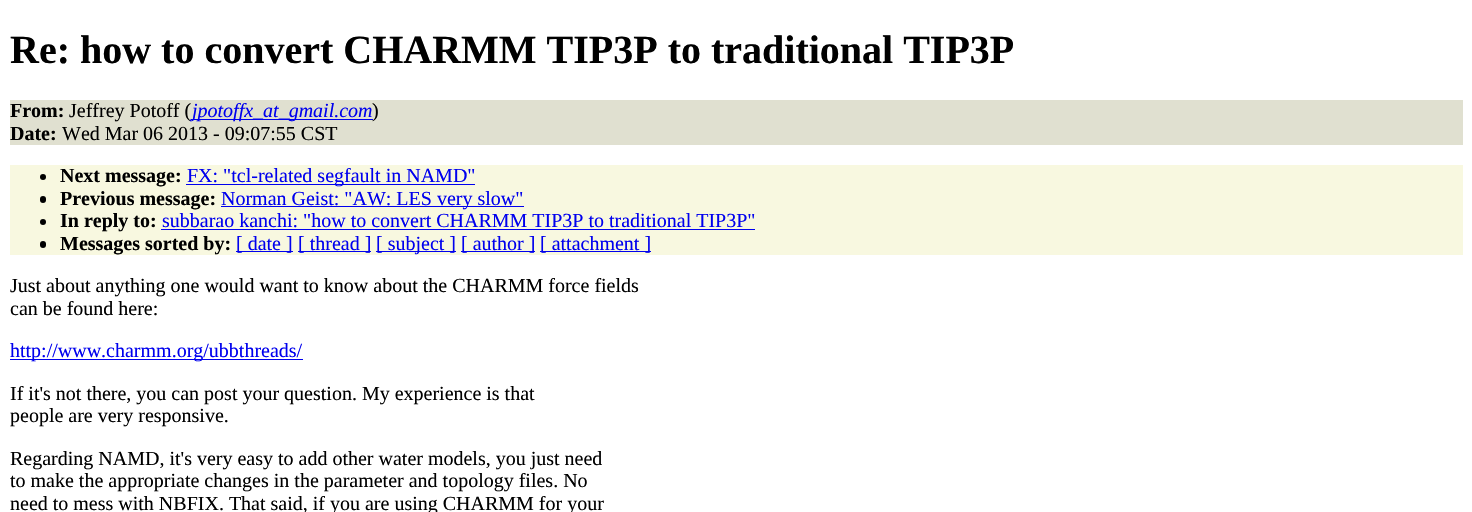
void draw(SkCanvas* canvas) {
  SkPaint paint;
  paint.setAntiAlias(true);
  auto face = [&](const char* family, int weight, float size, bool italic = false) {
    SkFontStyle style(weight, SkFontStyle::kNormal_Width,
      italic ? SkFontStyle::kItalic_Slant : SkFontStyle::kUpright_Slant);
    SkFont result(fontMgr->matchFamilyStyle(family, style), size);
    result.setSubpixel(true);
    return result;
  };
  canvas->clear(0xffffffff);
  {
    const struct { float x, y, w, h; SkColor color; } items[] = {
      {10, 100, 1453, 45, 0xffe0e0d0},
      {191, 119, 182, 1, 0xff0000ee},
      {10, 165, 1453, 90, 0xfff8f8e0},
    };
    for (auto [x, y, w, h, color] : items) {
      paint.setColor(color);
      canvas->drawRect(SkRect::MakeXYWH(x, y, w, h), paint);
    }
  }
  paint.setColor(0xff000000);
  canvas->drawCircle(43, 177, 3, paint);
  paint.setColor(0xff0000ee);
  canvas->drawRect(SkRect::MakeXYWH(186, 184, 289, 1), paint);
  paint.setColor(0xff000000);
  canvas->drawRoundRect(SkRect::MakeXYWH(40, 196, 6, 7), 3, 3, paint);
  paint.setColor(0xff0000ee);
  canvas->drawRect(SkRect::MakeXYWH(221, 206, 303, 1), paint);
  paint.setColor(0xff000000);
  canvas->drawCircle(43, 222, 3, paint);
  paint.setColor(0xff0000ee);
  canvas->drawRect(SkRect::MakeXYWH(161, 229, 594, 1), paint);
  paint.setColor(0xff000000);
  canvas->drawRoundRect(SkRect::MakeXYWH(40, 241, 6, 7), 3, 3, paint);
  {
    const struct { float x, y, w, h; SkColor color; } items[] = {
      {236, 251, 57, 1, 0xff0000ee},
      {298, 251, 73, 1, 0xff0000ee},
      {376, 251, 80, 1, 0xff0000ee},
      {461, 251, 74, 1, 0xff0000ee},
      {540, 251, 111, 1, 0xff0000ee},
      {10, 359, 293, 1, 0xff0000ee},
    };
    for (auto [x, y, w, h, color] : items) {
      paint.setColor(color);
      canvas->drawRect(SkRect::MakeXYWH(x, y, w, h), paint);
    }
  }
  auto f0 = face("Liberation Serif", 700, 40);
  paint.setColor(0xff000000);
  canvas->drawString("Re: how to convert CHARMM TIP3P to traditional TIP3P", 10, 63, f0, paint);
  auto f1 = face("Liberation Serif", 700, 20);
  canvas->drawString("From:", 10, 117, f1, paint);
  auto f2 = face("Liberation Serif", 400, 20);
  canvas->drawString("Jeffrey Potoff (", 69, 117, f2, paint);
  auto f3 = face("Liberation Serif", 400, 20, true);
  paint.setColor(0xff0000ee);
  canvas->drawString("jpotoffx_at_gmail.com", 192, 117, f3, paint);
  paint.setColor(0xff000000);
  canvas->drawString(")", 372, 117, f2, paint);
  canvas->drawString("Date:", 10, 140, f1, paint);
  canvas->drawString("Wed Mar 06 2013 - 09:07:55 CST", 62, 140, f2, paint);
  canvas->drawString("Next message:", 60, 182, f1, paint);
  paint.setColor(0xff0000ee);
  canvas->drawString("FX: \"tcl-related segfault in NAMD\"", 187, 182, f2, paint);
  paint.setColor(0xff000000);
  canvas->drawString("Previous message:", 60, 205, f1, paint);
  paint.setColor(0xff0000ee);
  canvas->drawString("Norman Geist: \"AW: LES very slow\"", 221, 205, f2, paint);
  paint.setColor(0xff000000);
  canvas->drawString("In reply to:", 60, 227, f1, paint);
  paint.setColor(0xff0000ee);
  canvas->drawString("subbarao kanchi: \"how to convert CHARMM TIP3P to traditional TIP3P\"", 162, 227, f2, paint);
  paint.setColor(0xff000000);
  canvas->drawString("Messages sorted by:", 60, 250, f1, paint);
  paint.setColor(0xff0000ee);
  {
    const struct { const char* s; float x, y; } items[] = {
      {"[ date ]", 236, 250},
      {"[ thread ]", 298, 250},
      {"[ subject ]", 376, 250},
      {"[ author ]", 461, 250},
      {"[ attachment ]", 540, 250},
    };
    for (auto [s, x, y] : items) {
      canvas->drawString(s, x, y, f2, paint);
    }
  }
  paint.setColor(0xff000000);
  canvas->drawString("Just about anything one would want to know about the CHARMM force fields", 10, 292, f2, paint);
  canvas->drawString("can be found here:", 10, 315, f2, paint);
  paint.setColor(0xff0000ee);
  canvas->drawString("http://www.charmm.org/ubbthreads/", 10, 357, f2, paint);
  paint.setColor(0xff000000);
  {
    const struct { const char* s; float x, y; } items[] = {
      {"If it's not there, you can post your question. My experience is that", 10, 400},
      {"people are very responsive.", 10, 422},
      {"Regarding NAMD, it's very easy to add other water models, you just need", 10, 465},
      {"to make the appropriate changes in the parameter and topology files. No", 10, 487},
      {"need to mess with NBFIX. That said, if you are using CHARMM for your", 10, 510},
    };
    for (auto [s, x, y] : items) {
      canvas->drawString(s, x, y, f2, paint);
    }
  }
}
